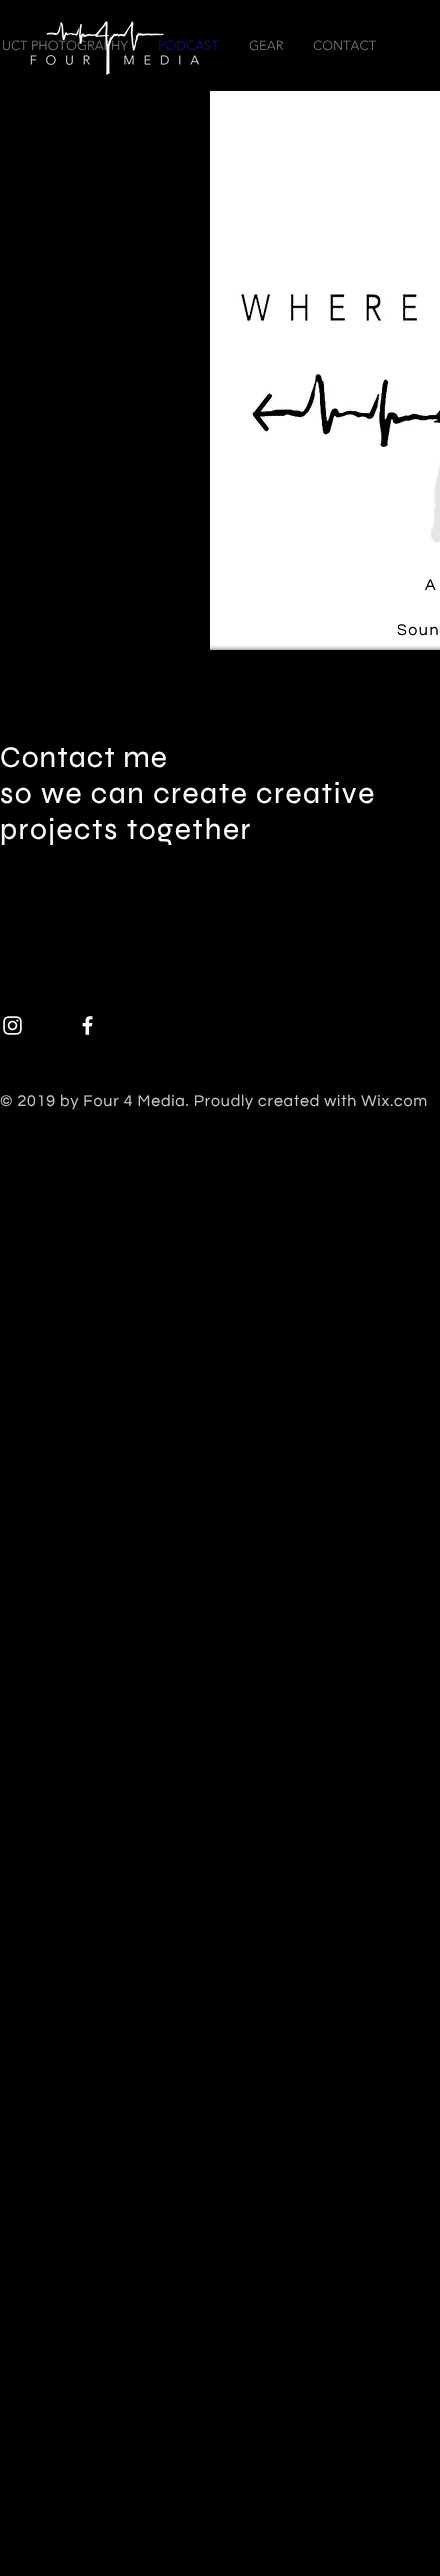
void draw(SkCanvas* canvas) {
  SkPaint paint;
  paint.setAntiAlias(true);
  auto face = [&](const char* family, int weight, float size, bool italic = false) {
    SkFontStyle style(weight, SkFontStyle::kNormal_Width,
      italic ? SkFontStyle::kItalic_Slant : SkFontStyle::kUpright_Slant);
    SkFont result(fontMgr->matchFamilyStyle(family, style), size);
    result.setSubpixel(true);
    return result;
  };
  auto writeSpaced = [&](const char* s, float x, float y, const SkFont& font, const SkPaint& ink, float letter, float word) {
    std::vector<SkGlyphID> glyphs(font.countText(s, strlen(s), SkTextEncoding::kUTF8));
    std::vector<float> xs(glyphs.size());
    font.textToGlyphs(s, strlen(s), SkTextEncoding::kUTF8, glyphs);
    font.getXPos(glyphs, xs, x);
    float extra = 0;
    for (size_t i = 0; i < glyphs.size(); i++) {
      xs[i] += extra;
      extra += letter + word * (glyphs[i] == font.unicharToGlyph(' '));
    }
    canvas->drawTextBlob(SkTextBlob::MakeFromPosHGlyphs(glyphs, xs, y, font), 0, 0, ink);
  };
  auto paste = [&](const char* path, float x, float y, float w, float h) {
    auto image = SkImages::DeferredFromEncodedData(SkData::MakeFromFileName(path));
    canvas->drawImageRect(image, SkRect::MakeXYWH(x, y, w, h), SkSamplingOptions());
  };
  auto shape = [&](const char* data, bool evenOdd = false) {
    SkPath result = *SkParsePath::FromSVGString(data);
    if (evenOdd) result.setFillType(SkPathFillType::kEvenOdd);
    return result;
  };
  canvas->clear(0xff000000);
  paste("img/2.png", 210, 91, 230, 559);
  canvas->save();
  canvas->clipPath(shape("M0 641H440V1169H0ZM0 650H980V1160H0Z", true), true);
  paint.setColor(0xb3000000);
  paint.setMaskFilter(SkMaskFilter::MakeBlur(kNormal_SkBlurStyle, 2.5f));
  canvas->drawRect(SkRect::MakeXYWH(0, 650, 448, 510), paint);
  paint.setMaskFilter(nullptr);
  canvas->restore();
  paste("img/3.png", 3, 1016, 19, 19);
  paste("img/4.png", 82, 1016, 11, 19);
  auto f0 = face("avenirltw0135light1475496", 300, 13);
  paint.setColor(0xff757575);
  canvas->drawString("UCT PHOTOGRAPHY", 2, 50, f0, paint);
  paint.setColor(0xff0f09a1);
  canvas->drawString("PODCAST", 158, 50, f0, paint);
  paste("img/1.png", 30, 21, 169, 54);
  paint.setColor(0xff757575);
  canvas->drawString("GEAR", 249, 50, f0, paint);
  canvas->drawString("CONTACT", 313, 50, f0, paint);
  auto f1 = face("Questrial", 400, 16);
  paint.setColor(0xff000000);
  writeSpaced("A", 425, 590, f1, paint, 1.5f, 0);
  writeSpaced("Soun", 397, 635, f1, paint, 1.5f, 0);
  auto f2 = face("Syne", 400, 30);
  paint.setColor(0xffffffff);
  writeSpaced("Contact me", 0, 767, f2, paint, 1, 0);
  writeSpaced("so we can create creative", 0, 803, f2, paint, 1.5f, 0);
  writeSpaced("projects together", 0, 839, f2, paint, 1.5f, 0);
  paint.setColor(0xffc7c7c7);
  writeSpaced("© 2019 by Four 4 Media. Proudly created with Wix.com", 0, 1106, f1, paint, 0.8f, 0);
}
